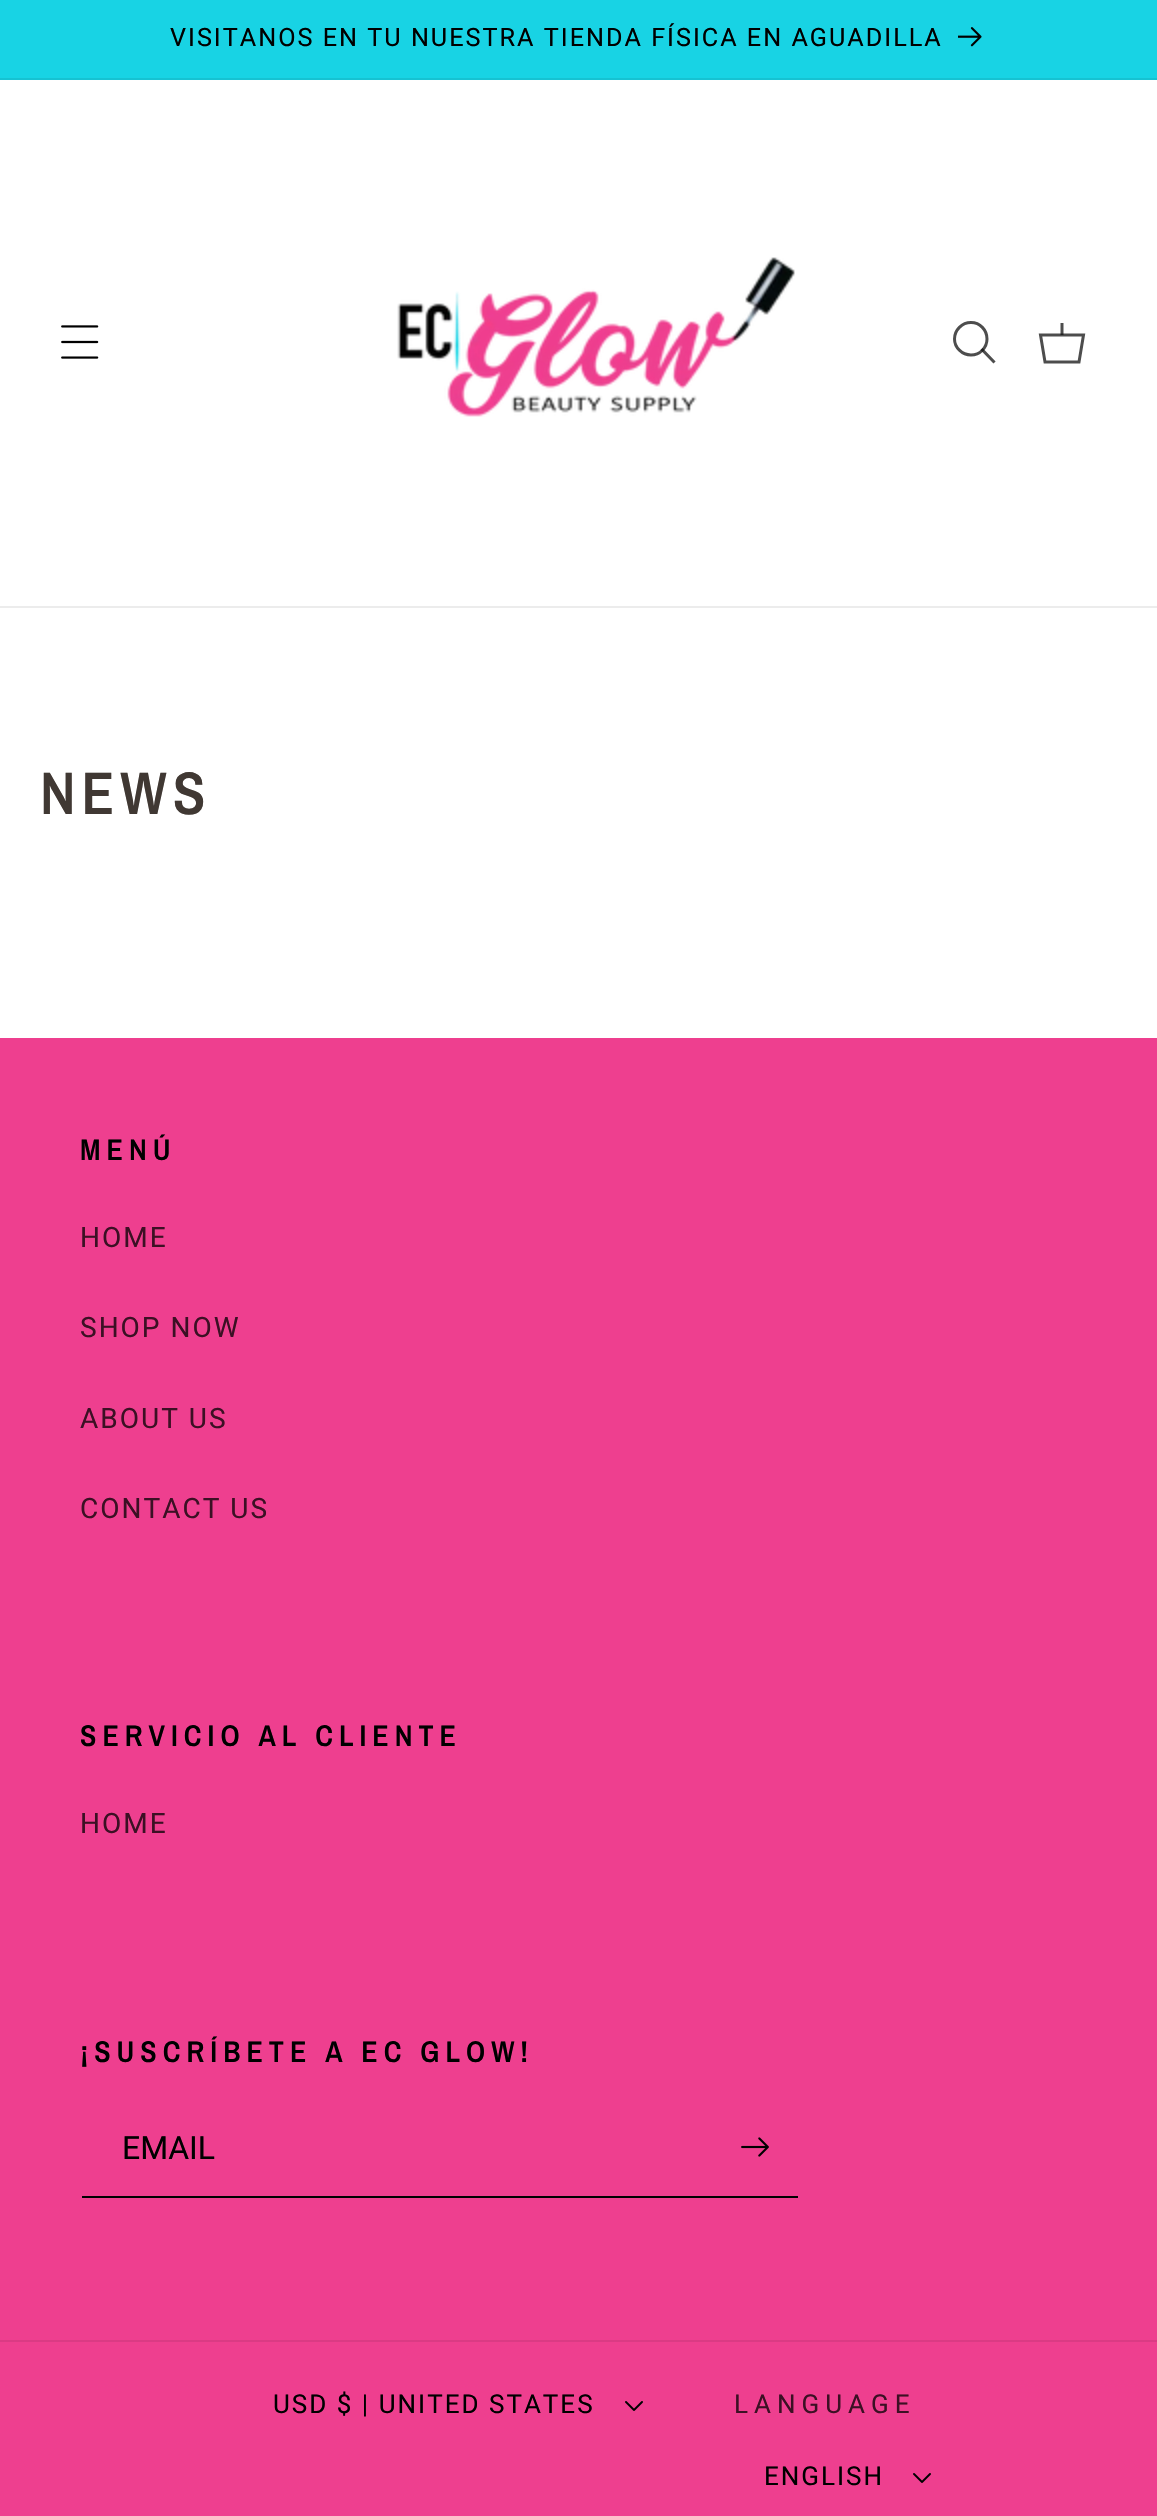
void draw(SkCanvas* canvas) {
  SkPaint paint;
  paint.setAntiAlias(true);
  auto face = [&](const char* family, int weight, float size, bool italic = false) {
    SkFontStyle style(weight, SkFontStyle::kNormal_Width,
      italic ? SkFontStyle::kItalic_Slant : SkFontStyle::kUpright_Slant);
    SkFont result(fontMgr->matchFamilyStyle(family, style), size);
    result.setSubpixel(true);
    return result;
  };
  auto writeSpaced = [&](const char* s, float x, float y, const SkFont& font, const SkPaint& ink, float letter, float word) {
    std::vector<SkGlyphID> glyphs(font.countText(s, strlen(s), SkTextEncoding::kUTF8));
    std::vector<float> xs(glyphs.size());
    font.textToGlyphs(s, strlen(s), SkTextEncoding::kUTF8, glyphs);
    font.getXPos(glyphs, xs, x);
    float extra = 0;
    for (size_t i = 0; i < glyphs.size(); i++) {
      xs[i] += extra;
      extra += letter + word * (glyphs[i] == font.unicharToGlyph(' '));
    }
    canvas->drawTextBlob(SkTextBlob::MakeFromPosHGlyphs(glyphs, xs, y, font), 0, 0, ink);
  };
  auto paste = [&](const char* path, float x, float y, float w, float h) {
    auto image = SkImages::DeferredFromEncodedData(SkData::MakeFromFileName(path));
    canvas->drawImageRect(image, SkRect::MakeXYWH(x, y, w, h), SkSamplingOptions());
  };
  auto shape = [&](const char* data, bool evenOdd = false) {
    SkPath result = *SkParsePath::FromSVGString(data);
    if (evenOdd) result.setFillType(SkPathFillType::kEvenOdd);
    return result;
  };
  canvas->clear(0xffffffff);
  paint.setColor(0xff18d3e4);
  canvas->drawRect(SkRect::MakeXYWH(0, 0, 1157, 78), paint);
  paint.setColor(0xff16c2d2);
  canvas->drawRect(SkRect::MakeXYWH(0, 78, 1157, 2), paint);
  paste("img/1.png", 958, 27, 24, 20);
  paint.setColor(0xffececec);
  canvas->drawRect(SkRect::MakeXYWH(0, 606, 1157, 2), paint);
  paste("img/2.png", 61, 325, 38, 34);
  paste("img/3.png", 397, 257, 398, 160);
  paint.setStroke(true);
  paint.setStrokeWidth(3);
  paint.setStrokeCap(SkPaint::kSquare_Cap);
  paint.setStrokeJoin(SkPaint::kRound_Join);
  paint.setColor(0xff4d4d4d);
  canvas->drawPath(shape("M971 355C980 355 987 347.5 987 339C987 330 980 322.5 971 322.5C962 322.5 954.5 330 954.5 339C954.5 347.5 962 355 971 355Z"), paint);
  paint.setColor(0xbf121212);
  canvas->drawPath(shape("M982.5 350L993.5 361.5"), paint);
  paint.setStrokeCap(SkPaint::kButt_Cap);
  paint.setStrokeJoin(SkPaint::kMiter_Join);
  paint.setColor(0xff4d4d4d);
  canvas->drawPath(shape("M1040.5 335H1083.5L1079 362H1045Z"), paint);
  paint.setColor(0xbf121212);
  canvas->drawPath(shape("M1062 323V335"), paint);
  paint.setStroke(false);
  paint.setColor(0xffee3f8f);
  canvas->drawRect(SkRect::MakeXYWH(0, 1038, 1157, 1478), paint);
  paste("img/4.png", 741, 2137, 28, 20);
  paint.setColor(0xff000000);
  canvas->drawRect(SkRect::MakeXYWH(82, 2196, 716, 2), paint);
  paint.setColor(0xffdb3a84);
  canvas->drawRect(SkRect::MakeXYWH(0, 2340, 1157, 2), paint);
  paste("img/5.png", 625, 2401, 18, 10);
  paste("img/5.png", 913, 2473, 18, 10);
  auto f0 = face("Roboto", 400, 25.2f);
  paint.setColor(0xff000000);
  writeSpaced("VISITANOS EN TU NUESTRA TIENDA FÍSICA EN AGUADILLA", 170, 46, f0, paint, 2, 0);
  auto f1 = face("Archivo Narrow", 600, 60);
  paint.setColor(0xff403833);
  writeSpaced("NEWS", 40, 814, f1, paint, 6, 0);
  auto f2 = face("Archivo Narrow", 600, 30);
  paint.setColor(0xff000000);
  writeSpaced("MENÚ", 80, 1160, f2, paint, 6, 0);
  auto f3 = face("Roboto", 400, 28);
  paint.setColor(0xff3c1024);
  {
    const struct { const char* s; float x, y; } items[] = {
      {"HOME", 80, 1247},
      {"SHOP NOW", 80, 1337},
      {"ABOUT US", 80, 1428},
      {"CONTACT US", 80, 1518},
    };
    for (auto [s, x, y] : items) {
      writeSpaced(s, x, y, f3, paint, 2, 0);
    }
  }
  paint.setColor(0xff000000);
  writeSpaced("SERVICIO AL CLIENTE", 80, 1746, f2, paint, 6, 0);
  paint.setColor(0xff3c1024);
  writeSpaced("HOME", 80, 1833, f3, paint, 2, 0);
  paint.setColor(0xff000000);
  writeSpaced("¡SUSCRÍBETE A EC GLOW!", 80, 2062, f2, paint, 6, 0);
  auto f4 = face("Roboto", 400, 32);
  canvas->drawString("EMAIL", 122, 2159, f4, paint);
  auto f5 = face("Roboto", 400, 26);
  writeSpaced("USD $ | UNITED STATES", 273, 2413, f5, paint, 2, 0);
  paint.setColor(0xff3c1024);
  writeSpaced("LANGUAGE", 734, 2413, f5, paint, 6, 0);
  paint.setColor(0xff000000);
  writeSpaced("ENGLISH", 764, 2485, f5, paint, 2, 0);
}
